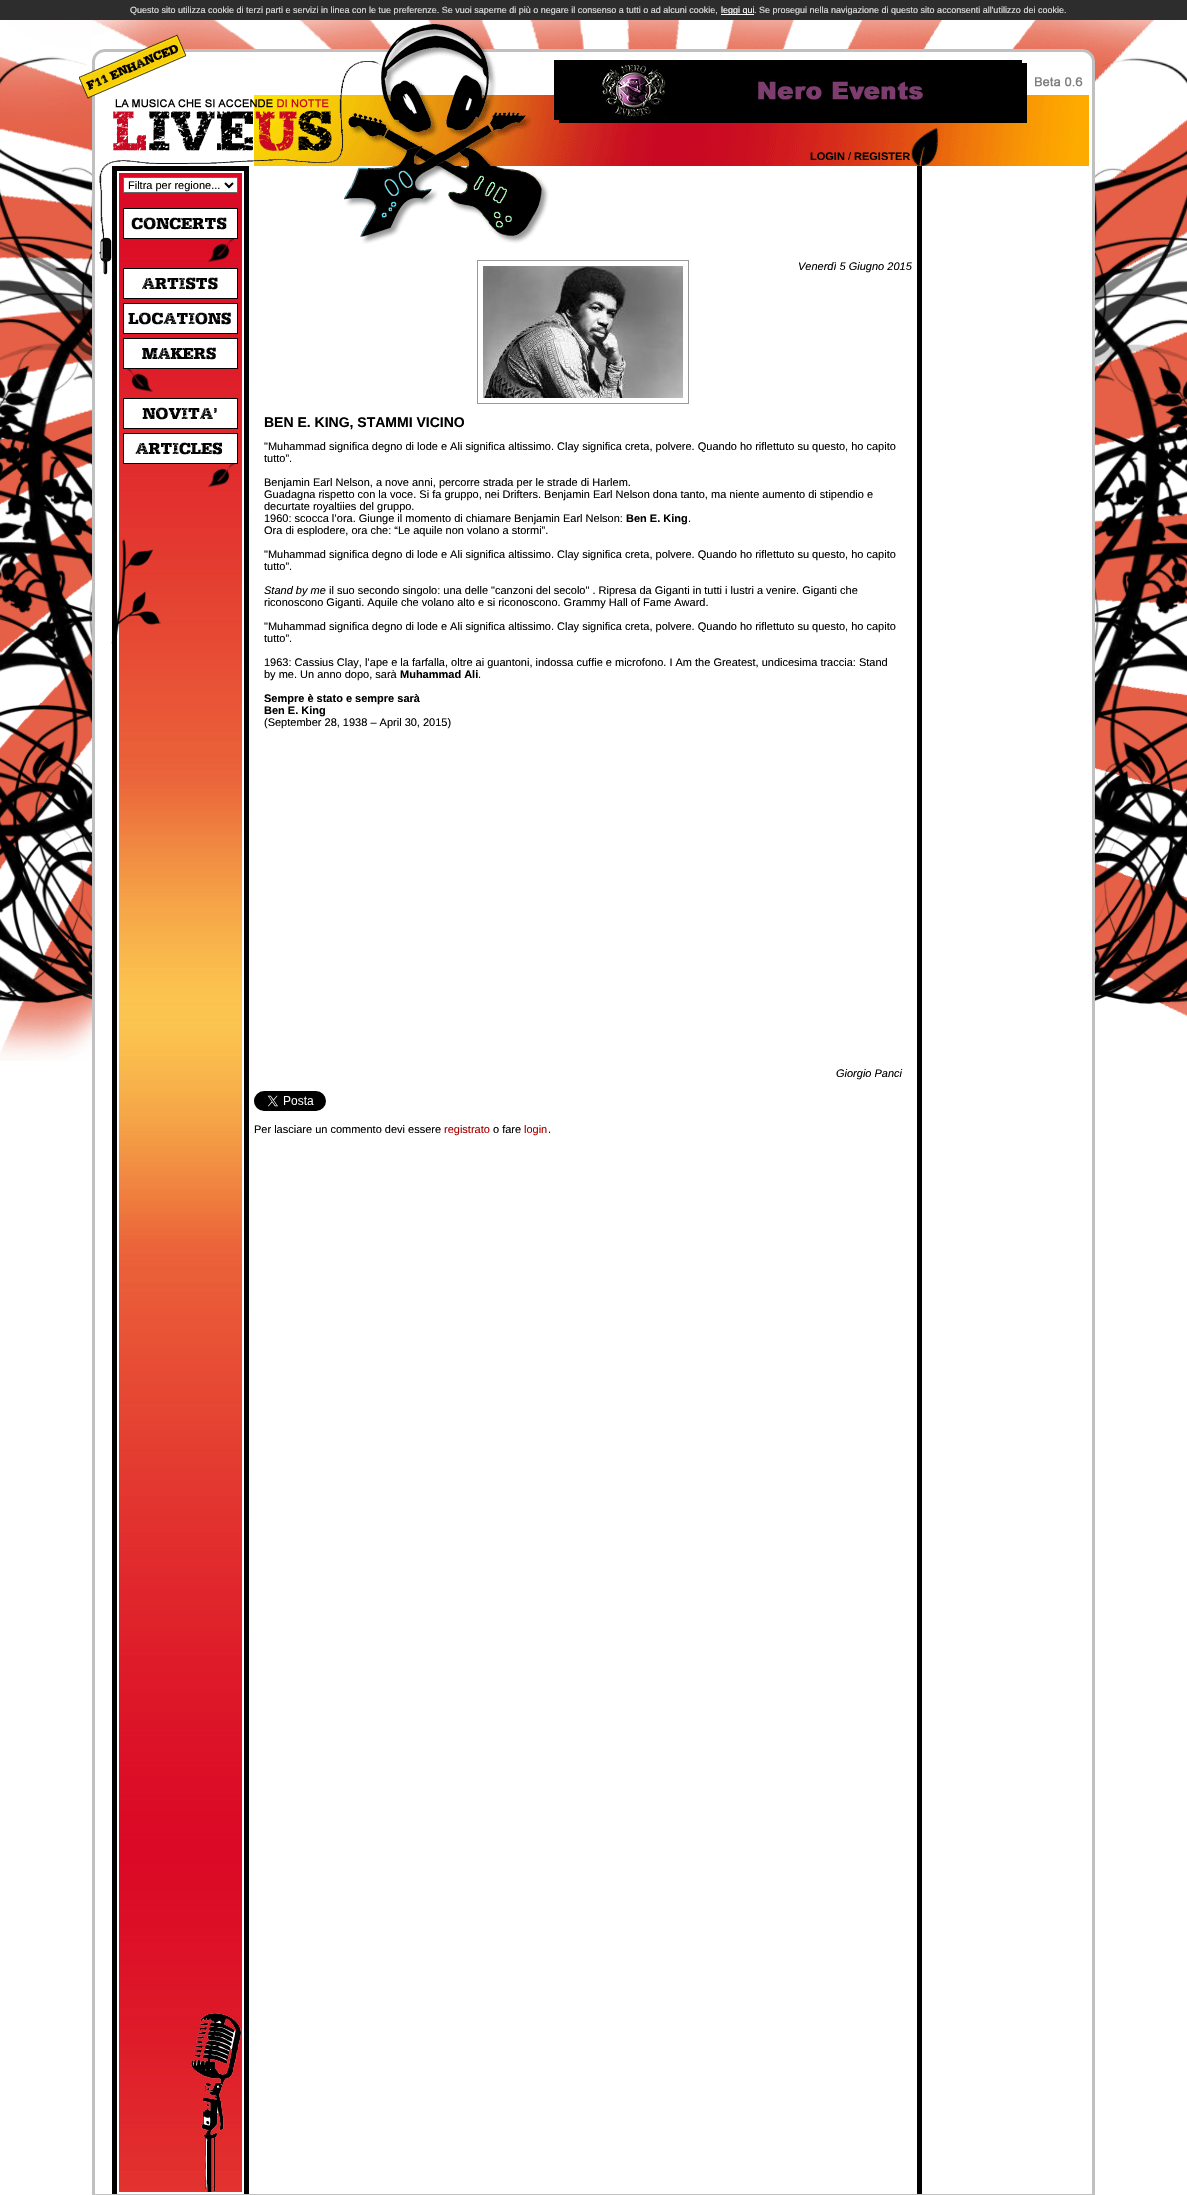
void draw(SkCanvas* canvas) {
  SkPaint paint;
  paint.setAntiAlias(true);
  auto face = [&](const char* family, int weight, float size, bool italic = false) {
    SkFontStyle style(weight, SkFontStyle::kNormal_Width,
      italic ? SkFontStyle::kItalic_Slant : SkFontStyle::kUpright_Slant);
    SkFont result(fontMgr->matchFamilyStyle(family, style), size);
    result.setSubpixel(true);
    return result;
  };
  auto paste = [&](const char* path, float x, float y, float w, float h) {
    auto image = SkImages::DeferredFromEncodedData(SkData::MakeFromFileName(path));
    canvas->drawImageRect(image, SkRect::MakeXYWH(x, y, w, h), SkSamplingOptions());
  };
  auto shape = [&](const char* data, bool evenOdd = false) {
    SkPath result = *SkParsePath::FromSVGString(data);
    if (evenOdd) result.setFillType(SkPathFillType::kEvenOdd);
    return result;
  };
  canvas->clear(0xffffffff);
  paint.setColor(0xff2d2d2d);
  canvas->drawRect(SkRect::MakeXYWH(0, 0, 1187, 20), paint);
  paint.setColor(0xffffffff);
  canvas->drawRect(SkRect::MakeXYWH(721, 14, 33, 1), paint);
  paste("img/1.png", 0, 20, 92, 1041);
  paste("img/2.png", 92, 20, 1003, 146);
  paste("img/3.png", 554, 60, 468, 60);
  paint.setColor(0xffc0c0c0);
  canvas->drawRect(SkRect::MakeXYWH(92, 166, 3, 2028), paint);
  paste("img/4.png", 99, 166, 13, 109);
  {
    const struct { float x, y, w, h; SkColor color; } items[] = {
      {112, 166, 137, 5, 0xff000000},
      {244, 166, 5, 2028, 0xff000000},
      {112, 166, 5, 2028, 0xff000000},
    };
    for (auto [x, y, w, h, color] : items) {
      paint.setColor(color);
      canvas->drawRect(SkRect::MakeXYWH(x, y, w, h), paint);
    }
  }
  paste("img/5.png", 119, 173, 123, 2019);
  paste("img/6.png", 191, 2013, 50, 179);
  paint.setColor(0xffffffff);
  canvas->drawRect(SkRect::MakeXYWH(123.5f, 177.5f, 114, 15), paint);
  paint.setStroke(true);
  paint.setStrokeWidth(1);
  paint.setColor(0xff666666);
  canvas->drawRect(SkRect::MakeXYWH(123.5f, 177.5f, 114, 15), paint);
  paint.setStrokeWidth(2);
  paint.setColor(0xff000000);
  canvas->drawPath(shape("M225 183L229 187L233 183"), paint);
  paint.setStroke(false);
  paint.setColor(0xffffffff);
  canvas->drawRect(SkRect::MakeXYWH(123.5f, 208.5f, 114, 30), paint);
  paint.setStroke(true);
  paint.setStrokeWidth(1);
  paint.setColor(0xff000000);
  canvas->drawRect(SkRect::MakeXYWH(123.5f, 208.5f, 114, 30), paint);
  paste("img/7.png", 131, 217, 96, 13);
  paste("img/8.png", 208, 239, 27, 24);
  paint.setStroke(false);
  paint.setColor(0xffffffff);
  canvas->drawRect(SkRect::MakeXYWH(123.5f, 268.5f, 114, 30), paint);
  paint.setStroke(true);
  paint.setColor(0xff000000);
  canvas->drawRect(SkRect::MakeXYWH(123.5f, 268.5f, 114, 30), paint);
  paste("img/9.png", 142, 277, 76, 13);
  paint.setStroke(false);
  paint.setColor(0xffffffff);
  canvas->drawRect(SkRect::MakeXYWH(123.5f, 303.5f, 114, 30), paint);
  paint.setStroke(true);
  paint.setColor(0xff000000);
  canvas->drawRect(SkRect::MakeXYWH(123.5f, 303.5f, 114, 30), paint);
  paste("img/10.png", 128, 312, 103, 13);
  paint.setStroke(false);
  paint.setColor(0xffffffff);
  canvas->drawRect(SkRect::MakeXYWH(123.5f, 338.5f, 114, 30), paint);
  paint.setStroke(true);
  paint.setColor(0xff000000);
  canvas->drawRect(SkRect::MakeXYWH(123.5f, 338.5f, 114, 30), paint);
  paste("img/11.png", 142, 347, 74, 13);
  paste("img/12.png", 126, 369, 27, 24);
  paint.setStroke(false);
  paint.setColor(0xffffffff);
  canvas->drawRect(SkRect::MakeXYWH(123.5f, 398.5f, 114, 30), paint);
  paint.setStroke(true);
  paint.setColor(0xff000000);
  canvas->drawRect(SkRect::MakeXYWH(123.5f, 398.5f, 114, 30), paint);
  paste("img/13.png", 142, 407, 75, 13);
  paint.setStroke(false);
  paint.setColor(0xffffffff);
  canvas->drawRect(SkRect::MakeXYWH(123.5f, 433.5f, 114, 30), paint);
  paint.setStroke(true);
  paint.setColor(0xff000000);
  canvas->drawRect(SkRect::MakeXYWH(123.5f, 433.5f, 114, 30), paint);
  paste("img/14.png", 135, 442, 87, 13);
  paste("img/15.png", 208, 464, 27, 24);
  paste("img/16.png", 111, 539, 50, 105);
  paint.setStroke(false);
  paint.setColor(0xffc0c0c0);
  canvas->drawRect(SkRect::MakeXYWH(1092, 166, 3, 2028), paint);
  paint.setColor(0xff000000);
  canvas->drawRect(SkRect::MakeXYWH(917, 166, 5, 2028), paint);
  paste("img/17.png", 344, 166, 205, 78);
  {
    const struct { float x, y, w, h; SkColor color; } items[] = {
      {477, 260, 212, 1, 0xff999999},
      {688, 260, 1, 144, 0xff999999},
      {477, 403, 212, 1, 0xff999999},
      {477, 260, 1, 144, 0xff999999},
    };
    for (auto [x, y, w, h, color] : items) {
      paint.setColor(color);
      canvas->drawRect(SkRect::MakeXYWH(x, y, w, h), paint);
    }
  }
  paste("img/18.png", 483, 266, 200, 132);
  paste("img/19.png", 254, 1091, 72, 20);
  paint.setColor(0xffc0c0c0);
  canvas->drawRect(SkRect::MakeXYWH(92, 2194, 1003, 1), paint);
  paste("img/20.png", 1095, 20, 92, 997);
  auto f0 = face("Liberation Sans", 400, 9);
  paint.setColor(0xffe0e0e0);
  canvas->drawString("Questo sito utilizza cookie di terzi parti e servizi in linea con le tue preferenze. Se vuoi saperne di più o negare il consenso a tutti o ad alcuni cookie,", 130, 13, f0, paint);
  paint.setColor(0xffffffff);
  canvas->drawString("leggi qui", 721, 13, f0, paint);
  paint.setColor(0xffe0e0e0);
  canvas->drawString(". Se prosegui nella navigazione di questo sito acconsenti all'utilizzo dei cookie.", 754, 13, f0, paint);
  auto f1 = face("Liberation Sans", 700, 11);
  paint.setColor(0xff000000);
  canvas->drawString("LOGIN", 810, 160, f1, paint);
  auto f2 = face("Liberation Sans", 400, 11);
  canvas->drawString("/", 848, 160, f2, paint);
  canvas->drawString("REGISTER", 854, 160, f1, paint);
  canvas->drawString("Filtra per regione...", 128, 189, f2, paint);
  auto f3 = face("Liberation Sans", 400, 11, true);
  canvas->drawString("Venerdì 5 Giugno 2015", 798, 270, f3, paint);
  auto f4 = face("Liberation Sans", 700, 14);
  canvas->drawString("BEN E. KING, STAMMI VICINO", 264, 427, f4, paint);
  {
    const struct { const char* s; float x, y; } items[] = {
      {"\"Muhammad significa degno di lode e Ali significa altissimo. Clay significa creta, polvere. Quando ho riflettuto su questo, ho capito", 264, 450},
      {"tutto”.", 264, 462},
      {"Benjamin Earl Nelson, a nove anni, percorre strada per le strade di Harlem.", 264, 486},
      {"Guadagna rispetto con la voce. Si fa gruppo, nei Drifters. Benjamin Earl Nelson dona tanto, ma niente aumento di stipendio e", 264, 498},
      {"decurtate royaltiies del gruppo.", 264, 510},
      {"1960: scocca l’ora. Giunge il momento di chiamare Benjamin Earl Nelson:", 264, 522},
    };
    for (auto [s, x, y] : items) {
      canvas->drawString(s, x, y, f2, paint);
    }
  }
  canvas->drawString("Ben E. King", 626, 522, f1, paint);
  {
    const struct { const char* s; float x, y; } items[] = {
      {".", 688, 522},
      {"Ora di esplodere, ora che: “Le aquile non volano a stormi”.", 264, 534},
      {"\"Muhammad significa degno di lode e Ali significa altissimo. Clay significa creta, polvere. Quando ho riflettuto su questo, ho capito", 264, 558},
      {"tutto”.", 264, 570},
    };
    for (auto [s, x, y] : items) {
      canvas->drawString(s, x, y, f2, paint);
    }
  }
  canvas->drawString("Stand by me", 264, 594, f3, paint);
  {
    const struct { const char* s; float x, y; } items[] = {
      {"il suo secondo singolo: una delle \"canzoni del secolo\" . Ripresa da Giganti in tutti i lustri a venire. Giganti che", 329, 594},
      {"riconoscono Giganti. Aquile che volano alto e si riconoscono. Grammy Hall of Fame Award.", 264, 606},
      {"\"Muhammad significa degno di lode e Ali significa altissimo. Clay significa creta, polvere. Quando ho riflettuto su questo, ho capito", 264, 630},
      {"tutto”.", 264, 642},
      {"1963: Cassius Clay, l’ape e la farfalla, oltre ai guantoni, indossa cuffie e microfono. I Am the Greatest, undicesima traccia: Stand", 264, 666},
      {"by me. Un anno dopo, sarà", 264, 678},
    };
    for (auto [s, x, y] : items) {
      canvas->drawString(s, x, y, f2, paint);
    }
  }
  canvas->drawString("Muhammad Ali", 400, 678, f1, paint);
  canvas->drawString(".", 478, 678, f2, paint);
  canvas->drawString("Sempre è stato e sempre sarà", 264, 702, f1, paint);
  canvas->drawString("Ben E. King", 264, 714, f1, paint);
  canvas->drawString("(September 28, 1938 – April 30, 2015)", 264, 726, f2, paint);
  canvas->drawString("Giorgio Panci", 836, 1077, f3, paint);
  canvas->drawString("Per lasciare un commento devi essere", 254, 1133, f2, paint);
  paint.setColor(0xffaa0000);
  canvas->drawString("registrato", 444, 1133, f2, paint);
  paint.setColor(0xff000000);
  canvas->drawString("o fare", 493, 1133, f2, paint);
  paint.setColor(0xffaa0000);
  canvas->drawString("login", 524, 1133, f2, paint);
  paint.setColor(0xff000000);
  canvas->drawString(".", 548, 1133, f2, paint);
}
